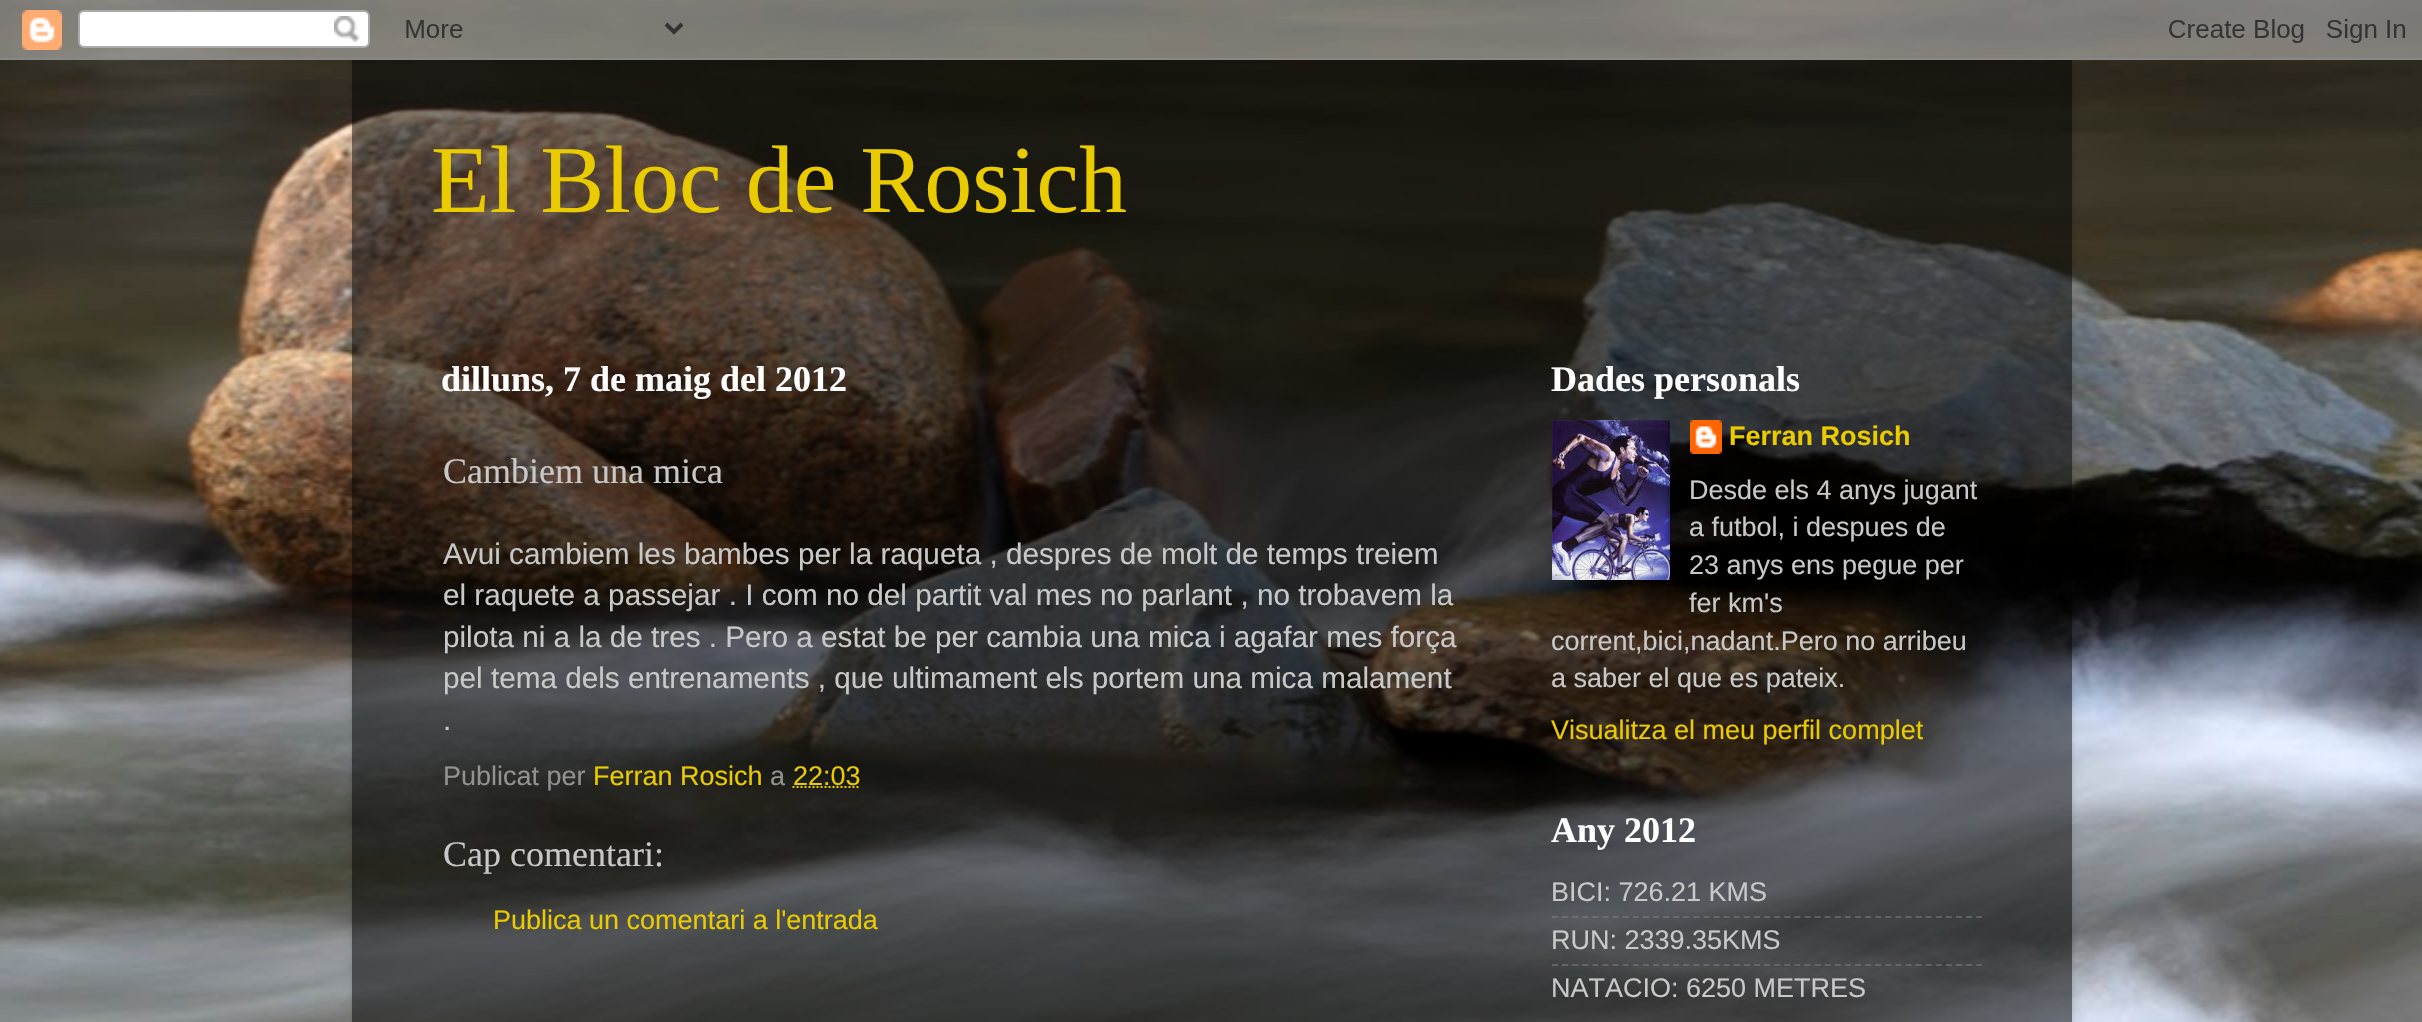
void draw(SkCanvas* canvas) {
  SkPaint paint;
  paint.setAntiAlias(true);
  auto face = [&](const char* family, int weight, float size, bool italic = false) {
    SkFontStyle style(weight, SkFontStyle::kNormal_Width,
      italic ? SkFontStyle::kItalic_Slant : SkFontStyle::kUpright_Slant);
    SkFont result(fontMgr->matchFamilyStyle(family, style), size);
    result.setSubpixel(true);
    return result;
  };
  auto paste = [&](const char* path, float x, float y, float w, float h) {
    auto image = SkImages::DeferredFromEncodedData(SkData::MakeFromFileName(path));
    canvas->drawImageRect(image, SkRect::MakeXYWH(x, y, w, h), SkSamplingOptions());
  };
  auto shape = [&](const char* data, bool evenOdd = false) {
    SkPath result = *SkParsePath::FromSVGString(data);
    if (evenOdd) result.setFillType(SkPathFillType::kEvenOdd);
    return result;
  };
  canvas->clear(0xffffffff);
  paste("img/1.png", 0, 0, 2422, 1022);
  canvas->save();
  canvas->clipPath(shape("M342 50H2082V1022H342ZM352 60H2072V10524H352Z", true), true);
  paint.setColor(0x26000000);
  paint.setMaskFilter(SkMaskFilter::MakeBlur(kNormal_SkBlurStyle, 3));
  canvas->drawRect(SkRect::MakeXYWH(352, 60, 1720, 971), paint);
  paint.setMaskFilter(nullptr);
  canvas->restore();
  paste("img/2.png", 0, 0, 2422, 60);
  paint.setColor(0x80000000);
  canvas->drawRect(SkRect::MakeXYWH(352, 60, 1720, 962), paint);
  paint.setStroke(true);
  paint.setStrokeWidth(2);
  paint.setColor(0xffeacb00);
  paint.setPathEffect(SkDashPathEffect::Make({{2, 2}}, 0));
  canvas->drawPath(shape("M792.5 787H860.5"), paint);
  paint.setPathEffect(nullptr);
  paste("img/3.png", 1552, 420, 118, 160);
  paste("img/4.png", 1690, 420, 32, 34);
  paint.setColor(0x80808080);
  paint.setPathEffect(SkDashPathEffect::Make({{6, 4.1f}}, 0));
  canvas->drawPath(shape("M1552 917H1982"), paint);
  paint.setPathEffect(nullptr);
  paint.setPathEffect(SkDashPathEffect::Make({{6, 4.1f}}, 0));
  canvas->drawPath(shape("M1552 965H1982"), paint);
  paint.setPathEffect(nullptr);
  auto f0 = face("Liberation Serif", 400, 96);
  paint.setStroke(false);
  paint.setColor(0xffeacb00);
  canvas->drawString("El Bloc de Rosich", 431, 212, f0, paint);
  auto f1 = face("Liberation Serif", 700, 36);
  paint.setColor(0xffffffff);
  canvas->drawString("dilluns, 7 de maig del 2012", 441, 391, f1, paint);
  auto f2 = face("Liberation Serif", 400, 36);
  paint.setColor(0xffc8c8c8);
  canvas->drawString("Cambiem una mica", 443, 483, f2, paint);
  auto f3 = face("Liberation Sans", 400, 29.7f);
  {
    const struct { const char* s; float x, y; } items[] = {
      {"Avui cambiem les bambes per la raqueta , despres de molt de temps treiem", 443, 564},
      {"el raquete a passejar . I com no del partit val mes no parlant , no trobavem la", 443, 605},
      {"pilota ni a la de tres . Pero a estat be per cambia una mica i agafar mes força", 443, 647},
      {"pel tema dels entrenaments , que ultimament els portem una mica malament", 443, 688},
      {".", 443, 730},
    };
    for (auto [s, x, y] : items) {
      canvas->drawString(s, x, y, f3, paint);
    }
  }
  auto f4 = face("Liberation Sans", 400, 27);
  paint.setColor(0xff929292);
  canvas->drawString("Publicat per", 443, 785, f4, paint);
  paint.setColor(0xffeacb00);
  canvas->drawString("Ferran Rosich", 593, 785, f4, paint);
  paint.setColor(0xff929292);
  canvas->drawString("a", 770, 785, f4, paint);
  paint.setColor(0xffeacb00);
  canvas->drawString("22:03", 793, 785, f4, paint);
  paint.setColor(0xffc8c8c8);
  canvas->drawString("Cap comentari:", 443, 866, f2, paint);
  paint.setColor(0xffeacb00);
  canvas->drawString("Publica un comentari a l'entrada", 493, 929, f4, paint);
  paint.setColor(0xffffffff);
  canvas->drawString("Dades personals", 1551, 391, f1, paint);
  auto f5 = face("Liberation Sans", 700, 27);
  paint.setColor(0xffeacb00);
  canvas->drawString("Ferran Rosich", 1729, 445, f5, paint);
  paint.setColor(0xffc8c8c8);
  {
    const struct { const char* s; float x, y; } items[] = {
      {"Desde els 4 anys jugant", 1689, 499},
      {"a futbol, i despues de", 1689, 536},
      {"23 anys ens pegue per", 1689, 574},
      {"fer km's", 1689, 612},
      {"corrent,bici,nadant.Pero no arribeu", 1551, 650},
      {"a saber el que es pateix.", 1551, 687},
    };
    for (auto [s, x, y] : items) {
      canvas->drawString(s, x, y, f4, paint);
    }
  }
  paint.setColor(0xffeacb00);
  canvas->drawString("Visualitza el meu perfil complet", 1551, 739, f4, paint);
  paint.setColor(0xffffffff);
  canvas->drawString("Any 2012", 1551, 842, f1, paint);
  paint.setColor(0xffc8c8c8);
  {
    const struct { const char* s; float x, y; } items[] = {
      {"BICI: 726.21 KMS", 1551, 901},
      {"RUN: 2339.35KMS", 1551, 949},
      {"NATACIO: 6250 METRES", 1551, 997},
    };
    for (auto [s, x, y] : items) {
      canvas->drawString(s, x, y, f4, paint);
    }
  }
}
